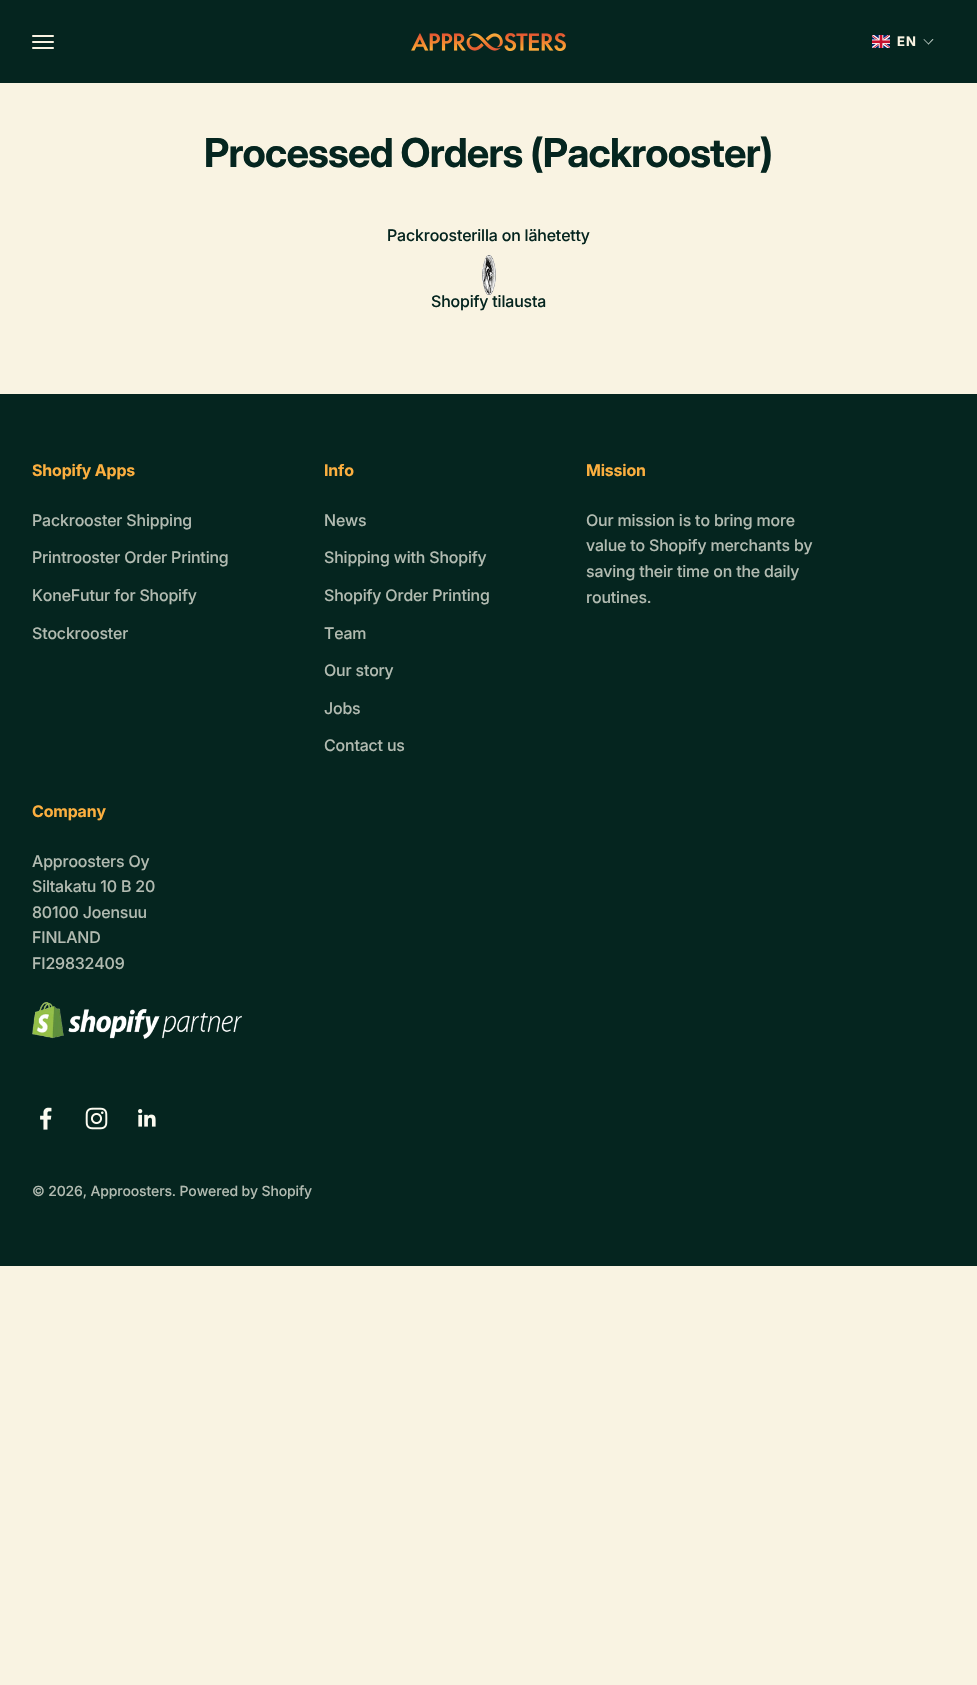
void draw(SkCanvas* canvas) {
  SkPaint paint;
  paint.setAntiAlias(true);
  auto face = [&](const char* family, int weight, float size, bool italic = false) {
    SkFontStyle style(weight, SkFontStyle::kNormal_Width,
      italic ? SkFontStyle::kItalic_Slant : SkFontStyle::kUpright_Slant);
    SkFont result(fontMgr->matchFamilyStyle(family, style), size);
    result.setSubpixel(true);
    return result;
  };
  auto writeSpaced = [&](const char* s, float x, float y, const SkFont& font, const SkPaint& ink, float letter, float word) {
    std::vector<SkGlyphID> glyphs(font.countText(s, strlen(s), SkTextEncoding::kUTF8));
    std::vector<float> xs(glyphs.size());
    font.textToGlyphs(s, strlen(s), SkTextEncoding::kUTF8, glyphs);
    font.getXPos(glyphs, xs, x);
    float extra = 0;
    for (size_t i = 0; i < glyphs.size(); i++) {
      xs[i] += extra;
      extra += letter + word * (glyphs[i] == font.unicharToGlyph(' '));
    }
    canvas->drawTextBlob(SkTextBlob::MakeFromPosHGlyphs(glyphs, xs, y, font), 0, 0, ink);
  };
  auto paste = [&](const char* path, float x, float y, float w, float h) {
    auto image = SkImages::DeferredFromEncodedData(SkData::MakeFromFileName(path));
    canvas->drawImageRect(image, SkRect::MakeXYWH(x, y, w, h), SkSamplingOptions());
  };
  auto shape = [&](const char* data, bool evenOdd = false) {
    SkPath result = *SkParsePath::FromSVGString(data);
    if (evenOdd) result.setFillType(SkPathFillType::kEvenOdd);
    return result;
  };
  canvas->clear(0xfff9f3e2);
  paint.setColor(0xff05251f);
  canvas->drawRect(SkRect::MakeXYWH(0, 0, 977, 83), paint);
  paste("img/1.png", 32, 35, 22, 14);
  paste("img/2.png", 411, 33, 155, 18);
  paste("img/3.png", 872, 35, 18, 13);
  paint.setColor(0xffc9d7cf);
  canvas->drawPath(shape("M932.5 39L933.5 39.5L928.5 44.5L928 44Z"), paint);
  canvas->drawPath(shape("M924 39L929 44L928.5 44.5L923.5 39.5Z"), paint);
  paint.setColor(0xff05251f);
  canvas->drawRect(SkRect::MakeXYWH(0, 394, 977, 872), paint);
  paste("img/5.png", 32, 1002, 210, 37);
  paste("img/6.png", 40, 1107, 12, 23);
  paste("img/7.png", 85, 1107, 23, 23);
  paste("img/8.png", 138, 1109, 18, 18);
  auto f0 = face("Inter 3", 700, 13);
  paint.setColor(0xfff9f3e2);
  writeSpaced("EN", 897, 46, f0, paint, 1, 0);
  auto f1 = face("Inter", 700, 40);
  paint.setColor(0xff05251f);
  writeSpaced("Processed Orders (Packrooster)", 204, 167, f1, paint, -0.8f, 0);
  auto f2 = face("Inter", 500, 16);
  writeSpaced("Packroosterilla on lähetetty", 387, 241, f2, paint, -0.15f, 0);
  writeSpaced("Shopify tilausta", 431, 307, f2, paint, -0.15f, 0);
  paste("img/4.png", 482, 255, 14, 40);
  auto f3 = face("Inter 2", 700, 16);
  paint.setColor(0xfffcaf3f);
  writeSpaced("Shopify Apps", 32, 476, f3, paint, -0.15f, 0);
  paint.setColor(0xffb2bbb1);
  {
    const struct { const char* s; float x, y; } items[] = {
      {"Packrooster Shipping", 32, 526},
      {"Printrooster Order Printing", 32, 563},
      {"KoneFutur for Shopify", 32, 601},
      {"Stockrooster", 32, 639},
    };
    for (auto [s, x, y] : items) {
      writeSpaced(s, x, y, f2, paint, -0.15f, 0);
    }
  }
  paint.setColor(0xfffcaf3f);
  writeSpaced("Info", 324, 476, f3, paint, -0.15f, 0);
  paint.setColor(0xffb2bbb1);
  {
    const struct { const char* s; float x, y; } items[] = {
      {"News", 324, 526},
      {"Shipping with Shopify", 324, 563},
      {"Shopify Order Printing", 324, 601},
      {"Team", 324, 639},
      {"Our story", 324, 676},
      {"Jobs", 324, 714},
      {"Contact us", 324, 751},
    };
    for (auto [s, x, y] : items) {
      writeSpaced(s, x, y, f2, paint, -0.15f, 0);
    }
  }
  paint.setColor(0xfffcaf3f);
  writeSpaced("Mission", 586, 476, f3, paint, -0.15f, 0);
  paint.setColor(0xffb2bbb1);
  {
    const struct { const char* s; float x, y; } items[] = {
      {"Our mission is to bring more", 586, 526},
      {"value to Shopify merchants by", 586, 551},
      {"saving their time on the daily", 586, 577},
      {"routines.", 586, 603},
    };
    for (auto [s, x, y] : items) {
      writeSpaced(s, x, y, f2, paint, -0.15f, 0);
    }
  }
  paint.setColor(0xfffcaf3f);
  writeSpaced("Company", 32, 817, f3, paint, -0.15f, 0);
  paint.setColor(0xffb2bbb1);
  {
    const struct { const char* s; float x, y; } items[] = {
      {"Approosters Oy", 32, 867},
      {"Siltakatu 10 B 20", 32, 892},
      {"80100 Joensuu", 32, 918},
      {"FINLAND", 32, 943},
      {"FI29832409", 32, 969},
    };
    for (auto [s, x, y] : items) {
      writeSpaced(s, x, y, f2, paint, -0.15f, 0);
    }
  }
  auto f4 = face("Inter 2", 500, 14);
  writeSpaced("© 2026, Approosters. Powered by Shopify", 32, 1196, f4, paint, -0.15f, 0);
}
